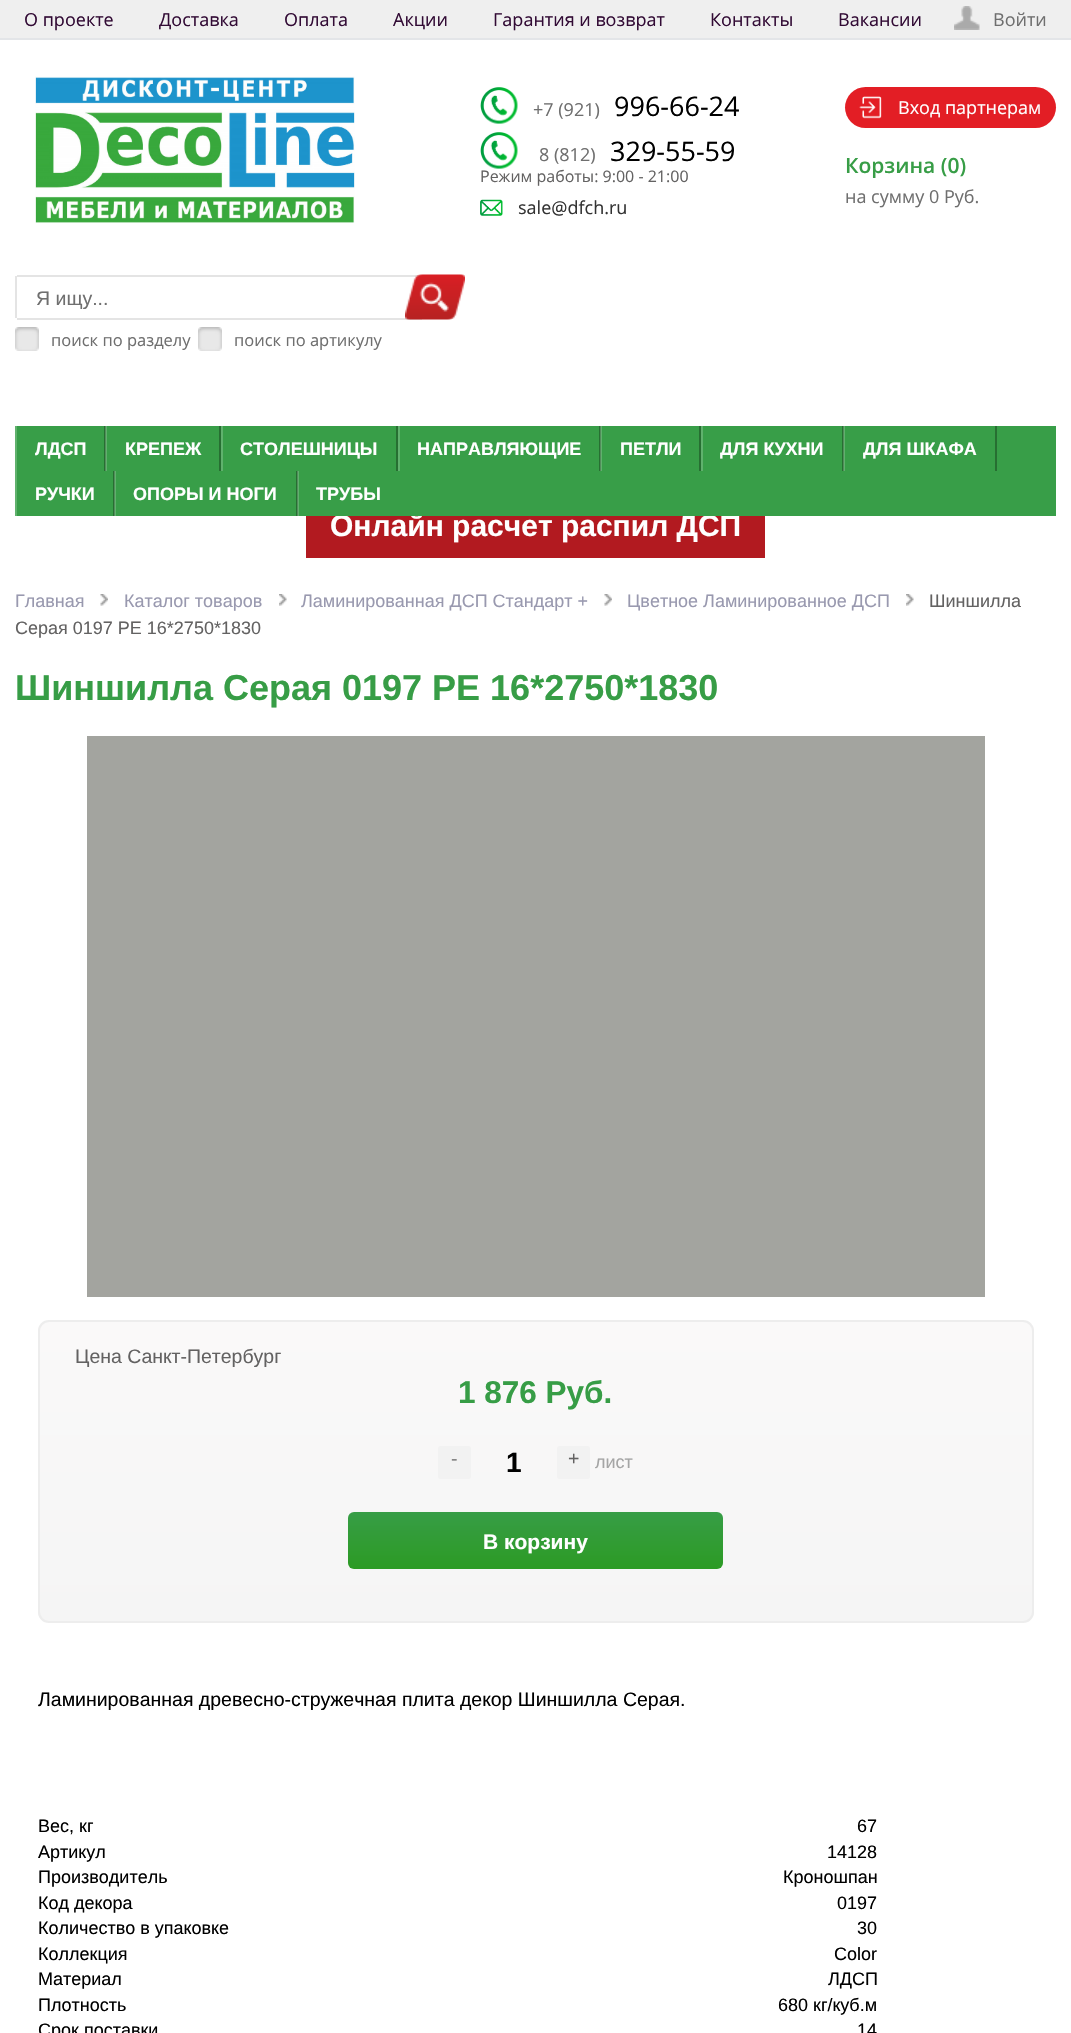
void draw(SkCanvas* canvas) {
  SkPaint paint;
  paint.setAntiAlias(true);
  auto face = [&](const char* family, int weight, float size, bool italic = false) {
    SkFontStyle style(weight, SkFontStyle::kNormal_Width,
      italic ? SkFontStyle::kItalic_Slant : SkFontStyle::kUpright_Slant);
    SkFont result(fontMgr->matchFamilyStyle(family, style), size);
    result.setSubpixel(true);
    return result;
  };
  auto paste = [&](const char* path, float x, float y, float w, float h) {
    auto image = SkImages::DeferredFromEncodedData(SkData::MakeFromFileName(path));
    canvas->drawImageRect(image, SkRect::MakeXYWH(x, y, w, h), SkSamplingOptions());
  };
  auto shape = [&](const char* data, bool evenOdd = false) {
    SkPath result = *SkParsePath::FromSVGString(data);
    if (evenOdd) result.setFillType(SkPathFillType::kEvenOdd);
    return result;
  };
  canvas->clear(0xffffffff);
  paint.setColor(0xffefefef);
  canvas->drawRect(SkRect::MakeXYWH(0, 0, 1071, 38), paint);
  paint.setColor(0xffe3e5e8);
  canvas->drawRect(SkRect::MakeXYWH(0, 38, 1071, 2), paint);
  paste("img/1.png", 954, 6, 26, 24);
  paste("img/2.png", 35, 76, 320, 147);
  paste("img/3.png", 480, 87, 38, 37);
  paste("img/3.png", 480, 132, 38, 37);
  paste("img/4.png", 480, 199, 23, 17);
  paint.setColor(0xffe31e25);
  canvas->drawRoundRect(SkRect::MakeXYWH(845, 87, 211, 41), 20.5f, 20.5f, paint);
  paste("img/5.png", 859, 96, 23, 23);
  {
    const struct { float x, y, w, h; SkColor color; } items[] = {
      {17, 275, 405, 2, 0xffe4e4e4},
      {17, 318, 405, 2, 0xffe4e4e4},
      {15, 276, 2, 42, 0xffe4e4e4},
    };
    for (auto [x, y, w, h, color] : items) {
      paint.setColor(color);
      canvas->drawRect(SkRect::MakeXYWH(x, y, w, h), paint);
    }
  }
  paste("img/6.png", 405, 274, 60, 46);
  paste("img/7.png", 15, 327, 24, 24);
  paste("img/7.png", 198, 327, 24, 24);
  paint.setColor(0xff60b16d);
  canvas->drawRect(SkRect::MakeXYWH(15, 426, 2, 90), paint);
  paint.setColor(0xffb21a20);
  canvas->drawRect(SkRect::MakeXYWH(306, 516, 459, 42), paint);
  paste("img/8.png", 100, 594, 8, 12);
  paste("img/9.png", 279, 594, 8, 12);
  paste("img/10.png", 604, 594, 8, 12);
  paste("img/11.png", 906, 594, 8, 12);
  paint.setColor(0xffa3a49f);
  canvas->drawRect(SkRect::MakeXYWH(87, 736, 898, 561), paint);
  canvas->save();
  canvas->clipPath(shape("M49 1320H1023C1029 1320 1034 1325 1034 1331V1612C1034 1618 1029 1623 1023 1623H49C43 1623 38 1618 38 1612V1331C38 1325 43 1320 49 1320Z"), true);
  {
    const SkColor colors[] = {0xfffaf9f9, 0xfff5f5f5};
    const float stops[] = {0, 1};
    const SkPoint ends[] = {{536, 1322}, {536, 1622}};
    paint.setShader(SkGradientShader::MakeLinear(ends, colors, stops, 2, SkTileMode::kClamp));
    paint.setAlpha(255);
  }
  canvas->drawRect(SkRect::MakeXYWH(38, 1322, 996, 300), paint);
  canvas->restore();
  paint.setStroke(true);
  paint.setStrokeWidth(2);
  paint.setShader(nullptr);
  paint.setColor(0xffededed);
  canvas->drawRoundRect(SkRect::MakeXYWH(39, 1321, 994, 301), 10, 10, paint);
  paint.setStroke(false);
  paint.setColor(0xfff2f2f2);
  canvas->drawRoundRect(SkRect::MakeXYWH(438, 1446, 33, 33), 3, 3, paint);
  canvas->drawRoundRect(SkRect::MakeXYWH(557, 1446, 33, 33), 3, 3, paint);
  {
    const SkColor colors[] = {0xff379d46, 0xff2c9b24};
    const float stops[] = {0, 1};
    const SkPoint ends[] = {{536, 1512}, {536, 1569}};
    paint.setShader(SkGradientShader::MakeLinear(ends, colors, stops, 2, SkTileMode::kClamp));
    paint.setAlpha(255);
  }
  canvas->drawRoundRect(SkRect::MakeXYWH(348, 1512, 375, 57), 6, 6, paint);
  auto f0 = face("Open Sans", 400, 18);
  paint.setShader(nullptr);
  paint.setColor(0xff320b35);
  {
    const struct { const char* s; float x, y; } items[] = {
      {"О проекте", 24, 26},
      {"Доставка", 159, 26},
      {"Оплата", 284, 26},
      {"Акции", 393, 26},
      {"Гарантия и возврат", 493, 26},
      {"Контакты", 710, 26},
      {"Вакансии", 838, 26},
    };
    for (auto [s, x, y] : items) {
      canvas->drawString(s, x, y, f0, paint);
    }
  }
  paint.setColor(0xff6f6f6f);
  canvas->drawString("Войти", 993, 26, f0, paint);
  canvas->drawString("+7 (921)", 533, 116, f0, paint);
  auto f1 = face("Open Sans", 400, 27);
  paint.setColor(0xff000000);
  canvas->drawString("996-66-24", 614, 116, f1, paint);
  paint.setColor(0xff6f6f6f);
  canvas->drawString("8 (812)", 539, 161, f0, paint);
  paint.setColor(0xff000000);
  canvas->drawString("329-55-59", 610, 161, f1, paint);
  auto f2 = face("Open Sans", 400, 16);
  paint.setColor(0xff636262);
  canvas->drawString("Режим работы: 9:00 - 21:00", 480, 182, f2, paint);
  paint.setColor(0xff333333);
  canvas->drawString("sale@dfch.ru", 518, 214, f0, paint);
  paint.setColor(0xffffffff);
  canvas->drawString("Вход партнерам", 898, 114, f0, paint);
  auto f3 = face("Open Sans", 600, 21);
  paint.setColor(0xff379d46);
  canvas->drawString("Корзина (0)", 845, 173, f3, paint);
  paint.setColor(0xff6f6f6f);
  canvas->drawString("на сумму 0 Руб.", 845, 203, f0, paint);
  auto f4 = face("Liberation Sans", 400, 19.5f);
  canvas->drawString("Я ищу...", 36, 305, f4, paint);
  auto f5 = face("Open Sans", 400, 16.5f);
  canvas->drawString("поиск по разделу", 51, 346, f5, paint);
  canvas->drawString("поиск по артикулу", 234, 346, f5, paint);
  auto f6 = face("Liberation Sans", 700, 30);
  paint.setColor(0xffffffff);
  canvas->drawString("Онлайн расчет распил ДСП", 330, 536, f6, paint);
  paint.setColor(0xff389e48);
  canvas->drawRect(SkRect::MakeXYWH(17, 426, 1039, 90), paint);
  auto f7 = face("Liberation Sans", 700, 18);
  paint.setColor(0xffffffff);
  canvas->drawString("ТРУБЫ", 316, 500, f7, paint);
  paint.setColor(0xff276f32);
  canvas->drawRect(SkRect::MakeXYWH(296, 471, 2, 45), paint);
  paint.setColor(0x33ffffff);
  canvas->drawRect(SkRect::MakeXYWH(297, 471, 2, 45), paint);
  paint.setColor(0xffffffff);
  canvas->drawString("ОПОРЫ И НОГИ", 133, 500, f7, paint);
  paint.setColor(0xff276f32);
  canvas->drawRect(SkRect::MakeXYWH(113, 471, 2, 45), paint);
  paint.setColor(0x33ffffff);
  canvas->drawRect(SkRect::MakeXYWH(114, 471, 2, 45), paint);
  paint.setColor(0xffffffff);
  canvas->drawString("РУЧКИ", 35, 500, f7, paint);
  canvas->drawString("ДЛЯ ШКАФА", 863, 455, f7, paint);
  {
    const struct { float x, y, w, h; SkColor color; } items[] = {
      {842, 426, 2, 45, 0xff276f32},
      {843, 426, 2, 45, 0x33ffffff},
      {995, 426, 2, 45, 0xff276f32},
    };
    for (auto [x, y, w, h, color] : items) {
      paint.setColor(color);
      canvas->drawRect(SkRect::MakeXYWH(x, y, w, h), paint);
    }
  }
  paint.setColor(0xffffffff);
  canvas->drawString("ДЛЯ КУХНИ", 720, 455, f7, paint);
  paint.setColor(0xff60b16d);
  canvas->drawRect(SkRect::MakeXYWH(701, 426, 2, 45), paint);
  paint.setColor(0xffffffff);
  canvas->drawString("ПЕТЛИ", 620, 455, f7, paint);
  {
    const struct { float x, y, w, h; SkColor color; } items[] = {
      {599, 426, 2, 45, 0xff276f32},
      {600, 426, 2, 45, 0x33ffffff},
      {699, 426, 2, 45, 0xff276f32},
    };
    for (auto [x, y, w, h, color] : items) {
      paint.setColor(color);
      canvas->drawRect(SkRect::MakeXYWH(x, y, w, h), paint);
    }
  }
  paint.setColor(0xffffffff);
  canvas->drawString("НАПРАВЛЯЮЩИЕ", 417, 455, f7, paint);
  paint.setColor(0xff60b16d);
  canvas->drawRect(SkRect::MakeXYWH(398, 426, 2, 45), paint);
  paint.setColor(0xffffffff);
  canvas->drawString("СТОЛЕШНИЦЫ", 240, 455, f7, paint);
  paint.setColor(0xff60b16d);
  canvas->drawRect(SkRect::MakeXYWH(221, 426, 2, 45), paint);
  paint.setColor(0xff276f32);
  canvas->drawRect(SkRect::MakeXYWH(396, 426, 2, 45), paint);
  paint.setColor(0xffffffff);
  canvas->drawString("КРЕПЕЖ", 125, 455, f7, paint);
  {
    const struct { float x, y, w, h; SkColor color; } items[] = {
      {104, 426, 2, 45, 0xff276f32},
      {105, 426, 2, 45, 0x33ffffff},
      {219, 426, 2, 45, 0xff276f32},
    };
    for (auto [x, y, w, h, color] : items) {
      paint.setColor(color);
      canvas->drawRect(SkRect::MakeXYWH(x, y, w, h), paint);
    }
  }
  paint.setColor(0xffffffff);
  canvas->drawString("ЛДСП", 35, 455, f7, paint);
  auto f8 = face("Liberation Sans", 400, 18);
  paint.setColor(0xff9999af);
  {
    const struct { const char* s; float x, y; } items[] = {
      {"Главная", 15, 607},
      {"Каталог товаров", 124, 607},
      {"Ламинированная ДСП Cтандарт +", 301, 607},
      {"Цветное Ламинированное ДСП", 627, 607},
    };
    for (auto [s, x, y] : items) {
      canvas->drawString(s, x, y, f8, paint);
    }
  }
  paint.setColor(0xff636262);
  canvas->drawString("Шиншилла", 929, 607, f8, paint);
  canvas->drawString("Серая 0197 РЕ 16*2750*1830", 15, 634, f8, paint);
  auto f9 = face("Liberation Sans", 700, 36);
  paint.setColor(0xff379d46);
  canvas->drawString("Шиншилла Серая 0197 РЕ 16*2750*1830", 15, 700, f9, paint);
  paint.setColor(0xff636262);
  canvas->drawString("Цена Санкт-Петербург", 75, 1363, f4, paint);
  auto f10 = face("Liberation Sans", 700, 31.5f);
  paint.setColor(0xff379d46);
  canvas->drawString("1 876 Руб.", 458, 1403, f10, paint);
  paint.setColor(0xff818181);
  canvas->drawString("-", 451, 1465, f4, paint);
  auto f11 = face("Liberation Sans", 700, 28);
  paint.setColor(0xff000000);
  canvas->drawString("1", 506, 1472, f11, paint);
  paint.setColor(0xff636262);
  canvas->drawString("+", 568, 1465, f4, paint);
  paint.setColor(0xffa5a5a5);
  canvas->drawString("лист", 595, 1468, f8, paint);
  auto f12 = face("Liberation Sans", 700, 21);
  paint.setColor(0xffffffff);
  canvas->drawString("В корзину", 483, 1549, f12, paint);
  paint.setColor(0xff000000);
  canvas->drawString("Ламинированная древесно-стружечная плита декор Шиншилла Серая.", 38, 1706, f4, paint);
  {
    const struct { const char* s; float x, y; } items[] = {
      {"Вес, кг", 38, 1832},
      {"67", 857, 1832},
      {"Артикул", 38, 1858},
      {"14128", 827, 1858},
      {"Производитель", 38, 1883},
      {"Кроношпан", 783, 1883},
      {"Код декора", 38, 1909},
      {"0197", 837, 1909},
      {"Количество в упаковке", 38, 1934},
      {"30", 857, 1934},
      {"Коллекция", 38, 1960},
      {"Color", 834, 1960},
      {"Материал", 38, 1985},
      {"ЛДСП", 828, 1985},
      {"Плотность", 38, 2011},
      {"680 кг/куб.м", 778, 2011},
      {"Срок поставки", 38, 2036},
      {"14", 857, 2036},
    };
    for (auto [s, x, y] : items) {
      canvas->drawString(s, x, y, f8, paint);
    }
  }
}
